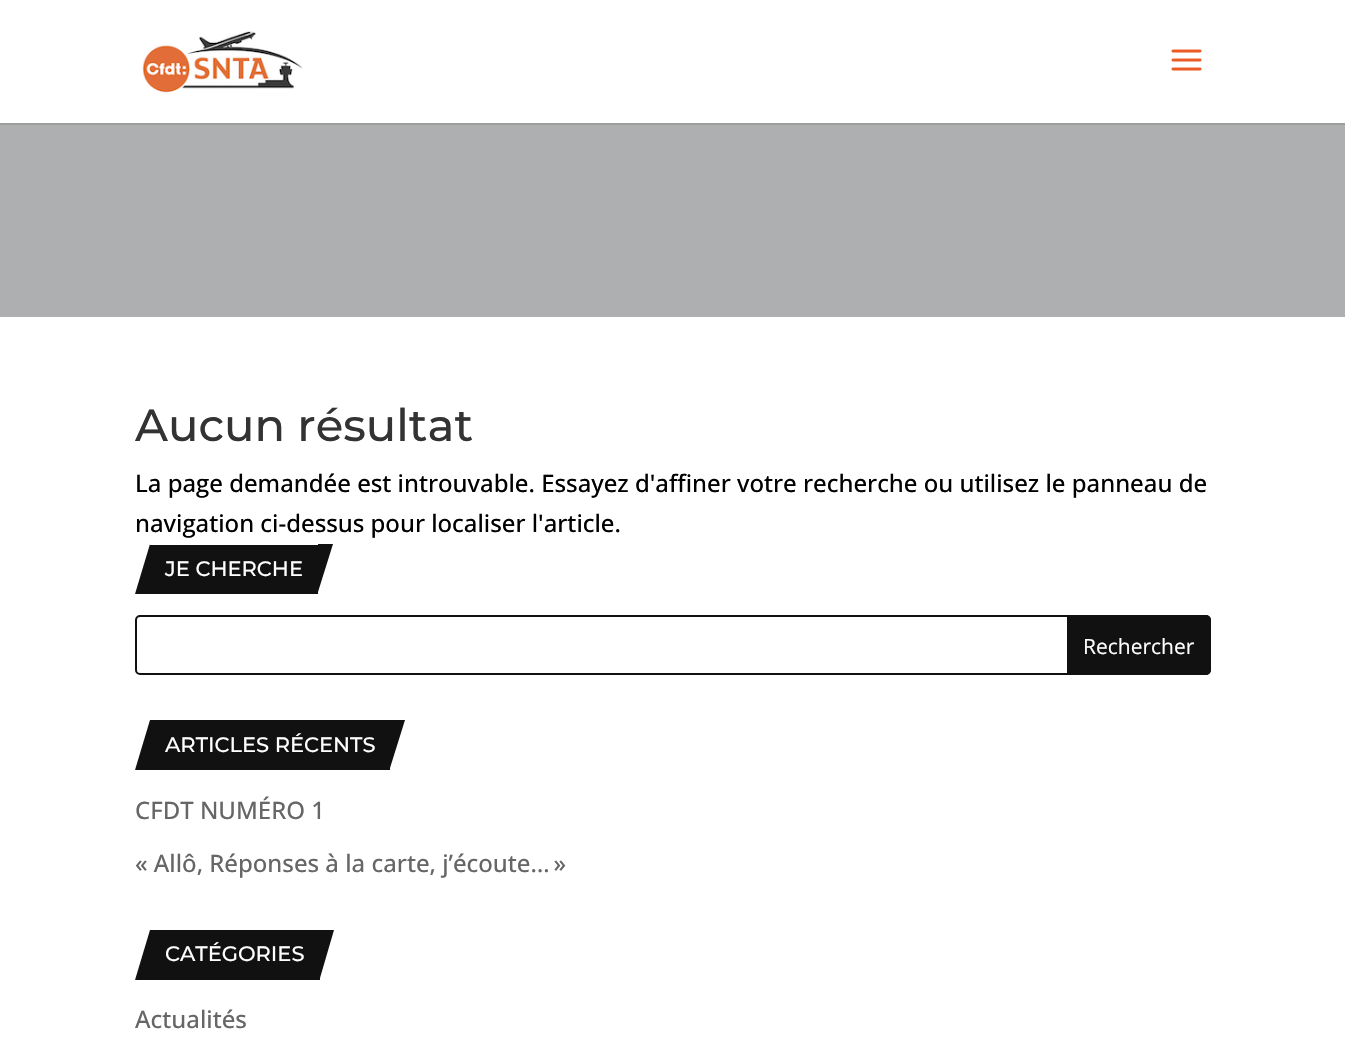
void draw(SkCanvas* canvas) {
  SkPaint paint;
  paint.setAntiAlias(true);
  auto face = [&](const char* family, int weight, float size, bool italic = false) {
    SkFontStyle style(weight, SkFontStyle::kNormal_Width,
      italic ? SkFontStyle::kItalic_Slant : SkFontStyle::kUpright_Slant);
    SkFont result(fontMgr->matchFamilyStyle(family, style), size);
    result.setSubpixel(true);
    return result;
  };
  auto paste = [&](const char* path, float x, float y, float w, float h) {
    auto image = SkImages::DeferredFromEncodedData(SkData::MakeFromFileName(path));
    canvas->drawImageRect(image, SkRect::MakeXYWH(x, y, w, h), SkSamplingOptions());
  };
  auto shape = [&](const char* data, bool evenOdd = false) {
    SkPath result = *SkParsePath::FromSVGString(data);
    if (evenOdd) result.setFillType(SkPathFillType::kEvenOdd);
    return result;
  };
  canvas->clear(0xffffffff);
  paint.setColor(0xff9c9e9e);
  canvas->drawPath(shape("M0 123V125H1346V2V123Z"), paint);
  paste("img/1.png", 142, 31, 161, 62);
  paste("img/2.png", 1171, 49, 31, 22);
  paint.setColor(0xffadafb0);
  canvas->drawRect(SkRect::MakeXYWH(0, 125, 1345, 192), paint);
  paint.setColor(0xff111111);
  canvas->drawRect(SkRect::MakeXYWH(150, 545, 168, 49), paint);
  canvas->drawPath(shape("M150 544V594H135Z"), paint);
  canvas->drawPath(shape("M318 592V544H333Z"), paint);
  paint.setStroke(true);
  paint.setStrokeWidth(2);
  canvas->drawRoundRect(SkRect::MakeXYWH(136, 616, 1074, 58), 4, 4, paint);
  paint.setStroke(false);
  canvas->drawPath(shape("M1068 616H1206C1208 616 1210 618 1210 620V670C1210 672 1208 674 1206 674H1068Z"), paint);
  paint.setStroke(true);
  canvas->drawPath(shape("M1068 616H1206C1208 616 1210 618 1210 620V670C1210 672 1208 674 1206 674H1068Z"), paint);
  paint.setStroke(false);
  canvas->drawRect(SkRect::MakeXYWH(150, 720, 240, 50), paint);
  canvas->drawPath(shape("M150 720V770H135Z"), paint);
  canvas->drawPath(shape("M390 768V720H405Z"), paint);
  canvas->drawRect(SkRect::MakeXYWH(150, 930, 170, 50), paint);
  canvas->drawPath(shape("M150 930V980H135Z"), paint);
  canvas->drawPath(shape("M320 978V930H334Z"), paint);
  auto f0 = face("Montserrat", 500, 45);
  paint.setColor(0xff333333);
  canvas->drawString("Aucun résultat", 135, 441, f0, paint);
  auto f1 = face("Open Sans", 500, 24);
  paint.setColor(0xff000000);
  canvas->drawString("La page demandée est introuvable. Essayez d'affiner votre recherche ou utilisez le panneau de", 135, 492, f1, paint);
  canvas->drawString("navigation ci-dessus pour localiser l'article.", 135, 532, f1, paint);
  auto f2 = face("Montserrat", 500, 21);
  paint.setColor(0xffffffff);
  canvas->drawString("JE CHERCHE", 165, 576, f2, paint);
  auto f3 = face("Open Sans", 400, 21);
  canvas->drawString("Rechercher", 1083, 654, f3, paint);
  canvas->drawString("ARTICLES RÉCENTS", 165, 752, f2, paint);
  paint.setColor(0xff666666);
  canvas->drawString("CFDT NUMÉRO 1", 135, 819, f1, paint);
  canvas->drawString("« Allô, Réponses à la carte, j’écoute… »", 135, 872, f1, paint);
  paint.setColor(0xffffffff);
  canvas->drawString("CATÉGORIES", 165, 961, f2, paint);
  paint.setColor(0xff666666);
  canvas->drawString("Actualités", 135, 1028, f1, paint);
}
